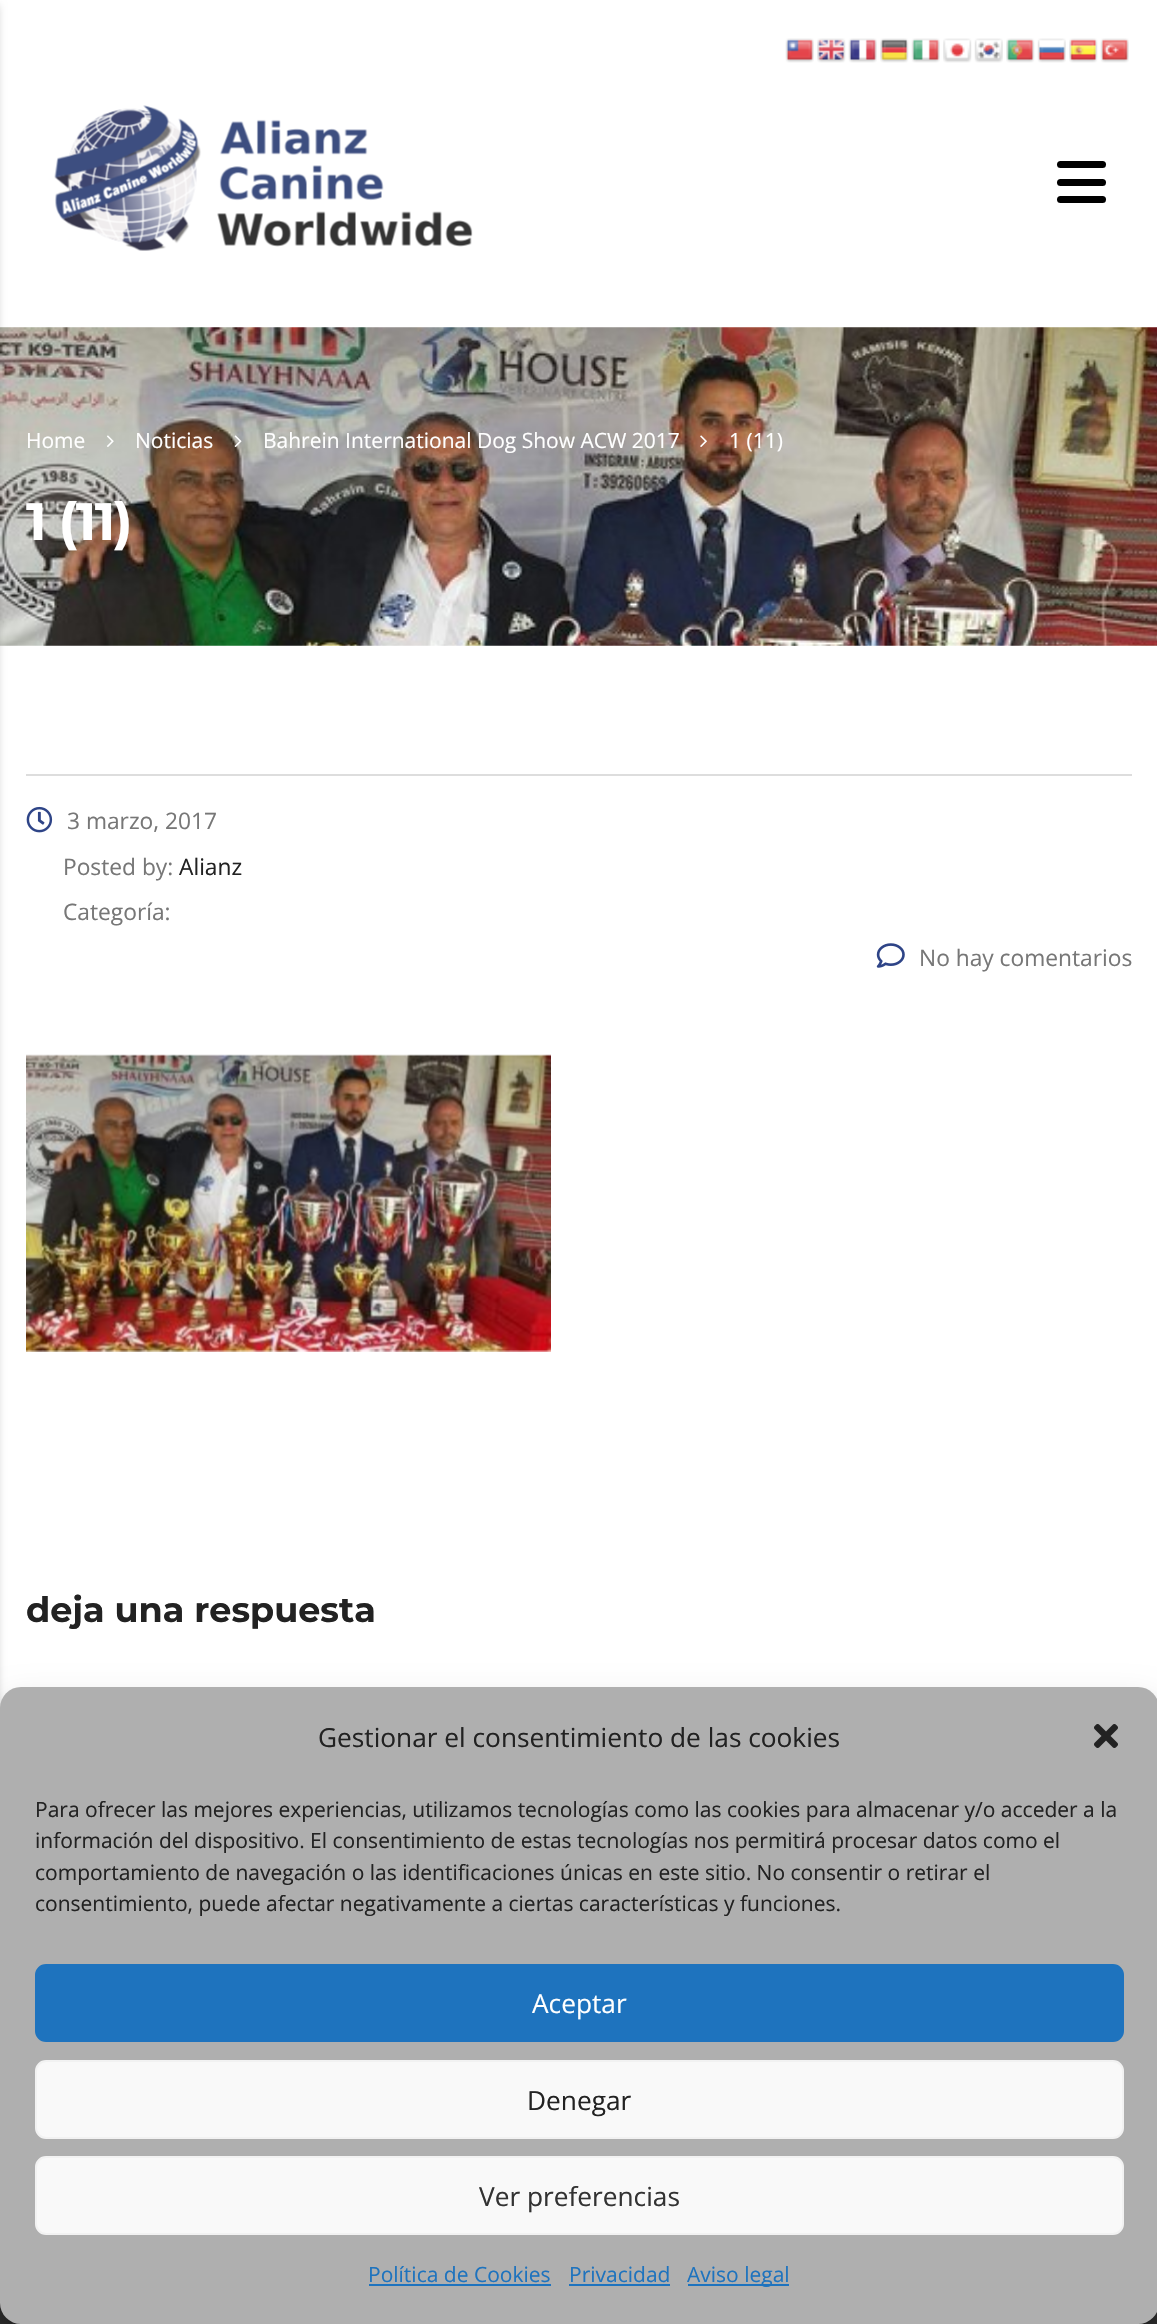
void draw(SkCanvas* canvas) {
  SkPaint paint;
  paint.setAntiAlias(true);
  auto face = [&](const char* family, int weight, float size, bool italic = false) {
    SkFontStyle style(weight, SkFontStyle::kNormal_Width,
      italic ? SkFontStyle::kItalic_Slant : SkFontStyle::kUpright_Slant);
    SkFont result(fontMgr->matchFamilyStyle(family, style), size);
    result.setSubpixel(true);
    return result;
  };
  auto writeSpaced = [&](const char* s, float x, float y, const SkFont& font, const SkPaint& ink, float letter, float word) {
    std::vector<SkGlyphID> glyphs(font.countText(s, strlen(s), SkTextEncoding::kUTF8));
    std::vector<float> xs(glyphs.size());
    font.textToGlyphs(s, strlen(s), SkTextEncoding::kUTF8, glyphs);
    font.getXPos(glyphs, xs, x);
    float extra = 0;
    for (size_t i = 0; i < glyphs.size(); i++) {
      xs[i] += extra;
      extra += letter + word * (glyphs[i] == font.unicharToGlyph(' '));
    }
    canvas->drawTextBlob(SkTextBlob::MakeFromPosHGlyphs(glyphs, xs, y, font), 0, 0, ink);
  };
  auto paste = [&](const char* path, float x, float y, float w, float h) {
    auto image = SkImages::DeferredFromEncodedData(SkData::MakeFromFileName(path));
    canvas->drawImageRect(image, SkRect::MakeXYWH(x, y, w, h), SkSamplingOptions());
  };
  canvas->clear(0xffffffff);
  paste("img/1.png", 785, 38, 29, 25);
  paste("img/2.png", 817, 38, 29, 25);
  paste("img/3.png", 848, 38, 29, 25);
  paste("img/4.png", 880, 38, 29, 25);
  paste("img/5.png", 911, 38, 29, 25);
  paste("img/6.png", 943, 38, 29, 25);
  paste("img/7.png", 974, 38, 29, 25);
  paste("img/8.png", 1006, 38, 29, 25);
  paste("img/9.png", 1037, 38, 29, 25);
  paste("img/10.png", 1069, 38, 29, 25);
  paste("img/11.png", 1100, 38, 29, 25);
  paste("img/13.png", 0, 327, 1157, 319);
  paint.setColor(0xff333333);
  canvas->drawRect(SkRect::MakeXYWH(0, 2303, 1157, 21), paint);
  paint.setColor(0x33000000);
  paint.setMaskFilter(SkMaskFilter::MakeBlur(kNormal_SkBlurStyle, 4.5f));
  canvas->drawRect(SkRect::MakeXYWH(-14, 5, 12, 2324), paint);
  paint.setMaskFilter(nullptr);
  paste("img/12.png", 54, 105, 419, 146);
  paint.setColor(0xff000000);
  canvas->drawRoundRect(SkRect::MakeXYWH(1057, 161, 49, 7), 3.5f, 3.5f, paint);
  canvas->drawRoundRect(SkRect::MakeXYWH(1057, 179, 49, 7), 3.5f, 3.5f, paint);
  canvas->drawRoundRect(SkRect::MakeXYWH(1057, 196, 49, 7), 3.5f, 3.5f, paint);
  paste("img/14.png", 107, 435, 7, 12);
  paste("img/15.png", 234, 435, 8, 12);
  paste("img/16.png", 700, 435, 7, 12);
  paint.setColor(0xffdddddd);
  canvas->drawRect(SkRect::MakeXYWH(26, 774, 1106, 2), paint);
  paste("img/17.png", 26, 806, 27, 27);
  paste("img/18.png", 876, 943, 29, 25);
  paste("img/19.png", 26, 1054, 525, 298);
  paint.setColor(0x3b000000);
  paint.setMaskFilter(SkMaskFilter::MakeBlur(kNormal_SkBlurStyle, 5));
  canvas->drawRoundRect(SkRect::MakeXYWH(0, 1698, 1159, 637), 21, 21, paint);
  paint.setMaskFilter(nullptr);
  paint.setColor(0x30000000);
  paint.setMaskFilter(SkMaskFilter::MakeBlur(kNormal_SkBlurStyle, 17.5f));
  canvas->drawRoundRect(SkRect::MakeXYWH(0, 1705, 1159, 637), 21, 21, paint);
  paint.setMaskFilter(nullptr);
  paint.setColor(0xffafafaf);
  canvas->drawRoundRect(SkRect::MakeXYWH(0, 1687, 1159, 637), 21, 21, paint);
  paste("img/20.png", 1094, 1724, 24, 24);
  paint.setColor(0xff1e73be);
  canvas->drawRoundRect(SkRect::MakeXYWH(36, 1965, 1087, 76), 10, 10, paint);
  paint.setStroke(true);
  paint.setStrokeWidth(2);
  canvas->drawRoundRect(SkRect::MakeXYWH(36, 1965, 1087, 76), 10, 10, paint);
  paint.setStroke(false);
  paint.setColor(0xfff9f9f9);
  canvas->drawRoundRect(SkRect::MakeXYWH(36, 2061, 1087, 77), 10, 10, paint);
  paint.setStroke(true);
  paint.setColor(0xfff2f2f2);
  canvas->drawRoundRect(SkRect::MakeXYWH(36, 2061, 1087, 77), 10, 10, paint);
  paint.setStroke(false);
  paint.setColor(0xfff9f9f9);
  canvas->drawRoundRect(SkRect::MakeXYWH(36, 2157, 1087, 77), 10, 10, paint);
  paint.setStroke(true);
  paint.setColor(0xfff2f2f2);
  canvas->drawRoundRect(SkRect::MakeXYWH(36, 2157, 1087, 77), 10, 10, paint);
  paint.setStroke(false);
  {
    const struct { float x, y, w, h; SkColor color; } items[] = {
      {369, 2284, 182, 2, 0xff1e73be},
      {569, 2284, 101, 2, 0xff1e73be},
      {688, 2284, 101, 2, 0xff1e73be},
    };
    for (auto [x, y, w, h, color] : items) {
      paint.setColor(color);
      canvas->drawRect(SkRect::MakeXYWH(x, y, w, h), paint);
    }
  }
  auto f0 = face("Open Sans", 400, 21);
  paint.setColor(0xffffffff);
  {
    const struct { const char* s; float x, y; } items[] = {
      {"Home", 26, 448},
      {"Noticias", 135, 448},
      {"Bahrein International Dog Show ACW 2017", 263, 448},
      {"1 (11)", 729, 448},
    };
    for (auto [s, x, y] : items) {
      canvas->drawString(s, x, y, f0, paint);
    }
  }
  auto f1 = face("Montserrat", 700, 52.5f);
  writeSpaced("1 (11)", 26, 540, f1, paint, -1.5f, 0);
  auto f2 = face("Open Sans", 400, 22.75f);
  paint.setColor(0xff777777);
  canvas->drawString("3 marzo, 2017", 67, 829, f2, paint);
  canvas->drawString("Posted by:", 63, 875, f2, paint);
  paint.setColor(0xff222222);
  canvas->drawString("Alianz", 179, 875, f2, paint);
  paint.setColor(0xff777777);
  canvas->drawString("Categoría:", 63, 920, f2, paint);
  canvas->drawString("No hay comentarios", 919, 966, f2, paint);
  auto f3 = face("Montserrat", 700, 35);
  paint.setColor(0xff222222);
  canvas->drawString("deja una respuesta", 26, 1622, f3, paint);
  auto f4 = face("Open Sans", 400, 26.25f);
  canvas->drawString("Gestionar el consentimiento de las cookies", 318, 1747, f4, paint);
  {
    const struct { const char* s; float x, y; } items[] = {
      {"Para ofrecer las mejores experiencias, utilizamos tecnologías como las cookies para almacenar y/o acceder a la", 35, 1817},
      {"información del dispositivo. El consentimiento de estas tecnologías nos permitirá procesar datos como el", 35, 1848},
      {"comportamiento de navegación o las identificaciones únicas en este sitio. No consentir o retirar el", 35, 1880},
      {"consentimiento, puede afectar negativamente a ciertas características y funciones.", 35, 1911},
    };
    for (auto [s, x, y] : items) {
      canvas->drawString(s, x, y, f0, paint);
    }
  }
  paint.setColor(0xffffffff);
  canvas->drawString("Aceptar", 532, 2013, f4, paint);
  paint.setColor(0xff222222);
  canvas->drawString("Denegar", 527, 2110, f4, paint);
  paint.setColor(0xff333333);
  canvas->drawString("Ver preferencias", 479, 2206, f4, paint);
  paint.setColor(0xff1e73be);
  {
    const struct { const char* s; float x, y; } items[] = {
      {"Política de Cookies", 368, 2282},
      {"Privacidad", 569, 2282},
      {"Aviso legal", 687, 2282},
    };
    for (auto [s, x, y] : items) {
      canvas->drawString(s, x, y, f0, paint);
    }
  }
}
